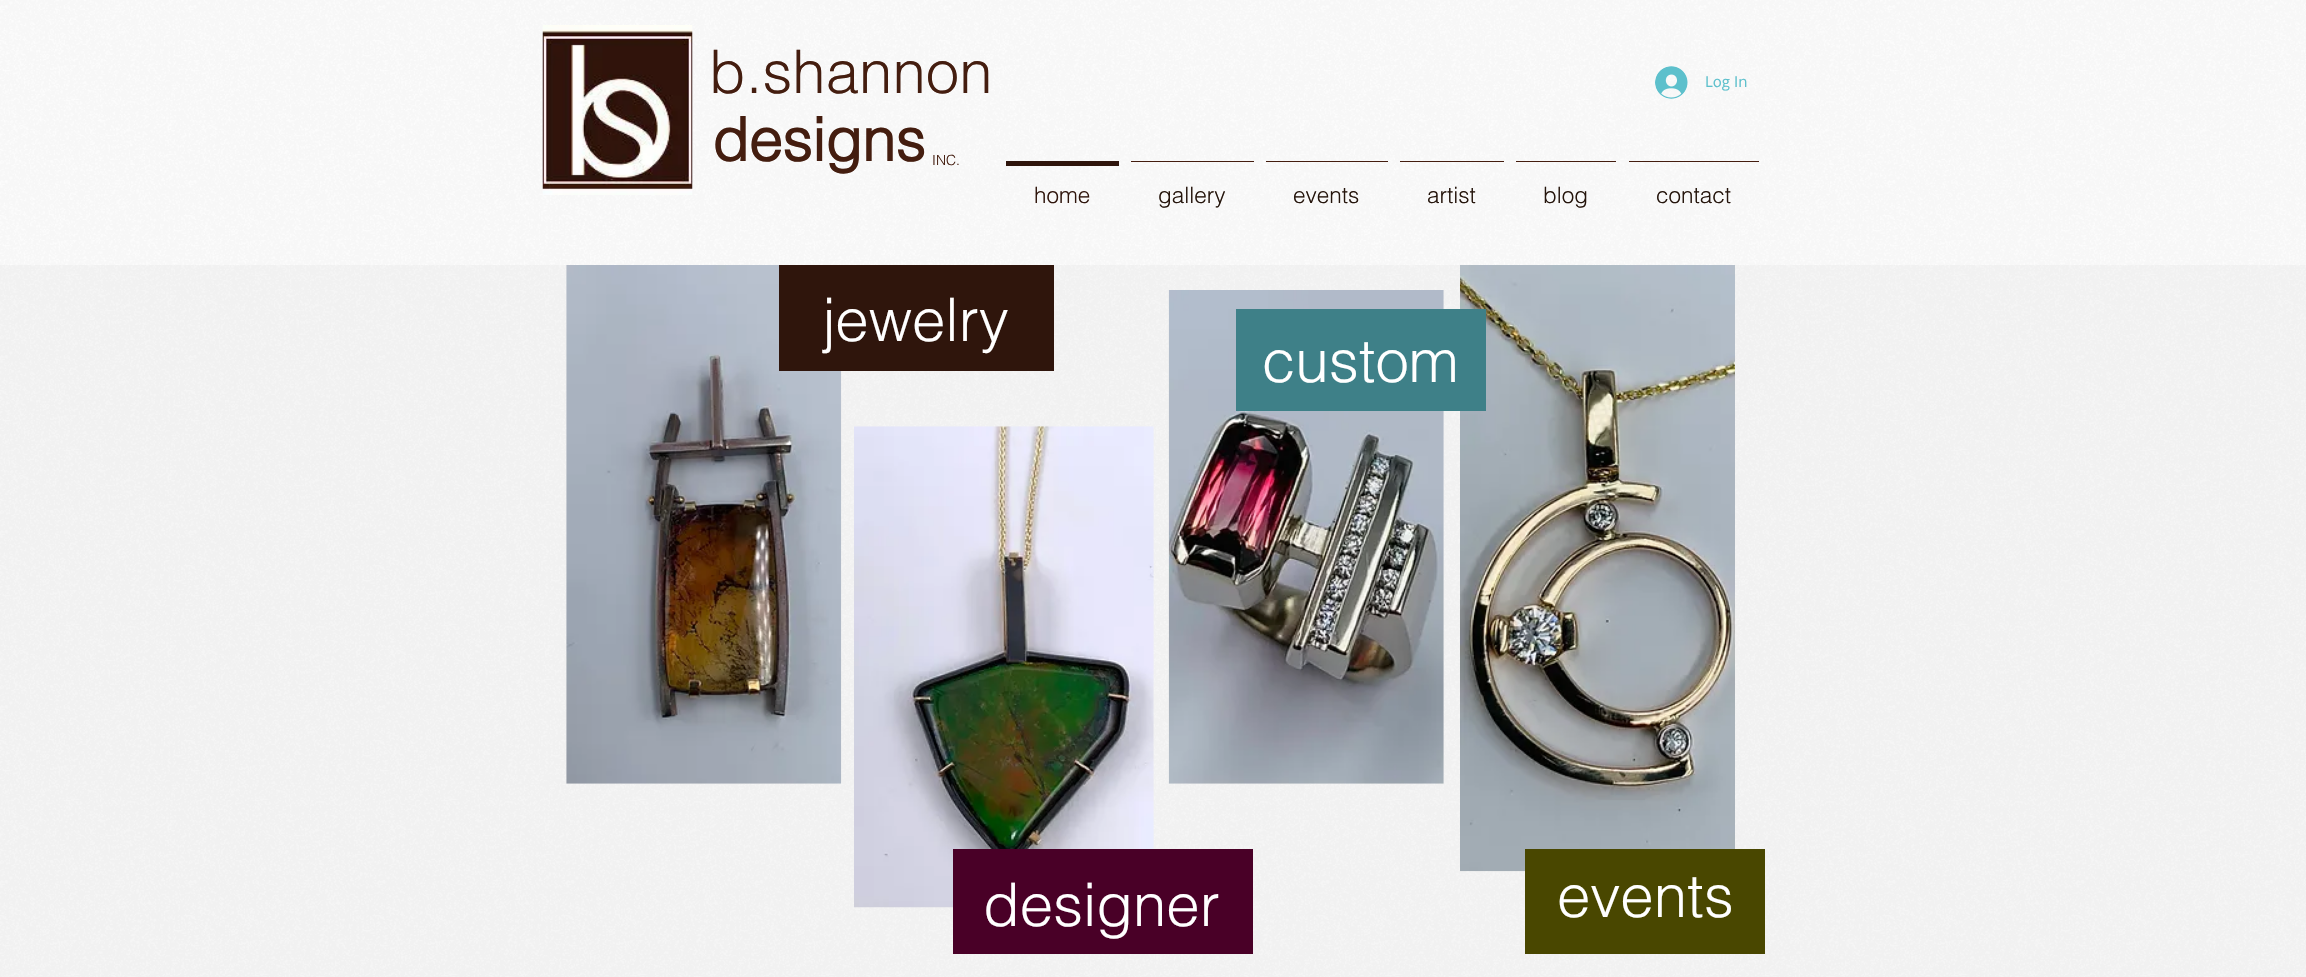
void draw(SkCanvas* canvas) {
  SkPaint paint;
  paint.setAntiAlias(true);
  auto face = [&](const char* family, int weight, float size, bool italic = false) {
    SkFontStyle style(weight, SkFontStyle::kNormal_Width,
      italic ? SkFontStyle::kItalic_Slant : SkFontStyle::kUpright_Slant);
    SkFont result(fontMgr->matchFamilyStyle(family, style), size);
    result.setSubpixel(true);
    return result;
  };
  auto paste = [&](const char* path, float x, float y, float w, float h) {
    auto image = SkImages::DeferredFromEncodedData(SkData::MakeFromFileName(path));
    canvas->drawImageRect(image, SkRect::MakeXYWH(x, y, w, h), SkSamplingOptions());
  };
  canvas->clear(0xffffffff);
  paste("img/1.png", 0, 0, 2306, 977);
  paste("img/2.png", 542, 25, 151, 170);
  paste("img/3.png", 1655, 66, 33, 33);
  {
    const struct { float x, y, w, h; SkColor color; } items[] = {
      {1006, 161, 113, 5, 0xff2f150c},
      {1131, 161, 123, 1, 0xff441d0f},
      {1266, 161, 122, 1, 0xff441d0f},
      {1400, 161, 104, 1, 0xff441d0f},
      {1516, 161, 100, 1, 0xff441d0f},
      {1629, 161, 130, 1, 0xff441d0f},
      {0, 265, 2306, 712, 0x33dbdbdb},
    };
    for (auto [x, y, w, h, color] : items) {
      paint.setColor(color);
      canvas->drawRect(SkRect::MakeXYWH(x, y, w, h), paint);
    }
  }
  paste("img/4.png", 566, 265, 276, 519);
  paint.setColor(0xff2f150c);
  canvas->drawRect(SkRect::MakeXYWH(779, 265, 275, 106), paint);
  paste("img/5.png", 1168, 290, 276, 494);
  paste("img/6.png", 1460, 265, 275, 607);
  paint.setColor(0xff3e8088);
  canvas->drawRect(SkRect::MakeXYWH(1236, 309, 250, 102), paint);
  paste("img/7.png", 854, 426, 300, 482);
  paint.setColor(0xff494700);
  canvas->drawRect(SkRect::MakeXYWH(1525, 849, 240, 105), paint);
  paint.setColor(0xff490027);
  canvas->drawRect(SkRect::MakeXYWH(953, 849, 300, 105), paint);
  auto f0 = face("helvetica", 300, 60);
  paint.setColor(0xff441d0f);
  canvas->drawString("b.shannon", 709, 93, f0, paint);
  auto f1 = face("Open Sans", 400, 15);
  paint.setColor(0xff5dc0cc);
  canvas->drawString("Log In", 1705, 87, f1, paint);
  auto f2 = face("helvetica", 700, 60);
  paint.setColor(0xff441d0f);
  canvas->drawString("designs", 712, 161, f2, paint);
  auto f3 = face("helvetica", 300, 14);
  canvas->drawString("INC.", 932, 165, f3, paint);
  auto f4 = face("helvetica", 300, 22.5f);
  paint.setColor(0xff2f150c);
  canvas->drawString("home", 1034, 203, f4, paint);
  paint.setColor(0xff25150c);
  {
    const struct { const char* s; float x, y; } items[] = {
      {"gallery", 1158, 203},
      {"events", 1293, 203},
      {"artist", 1427, 203},
      {"blog", 1543, 203},
      {"contact", 1656, 203},
    };
    for (auto [s, x, y] : items) {
      canvas->drawString(s, x, y, f4, paint);
    }
  }
  paint.setColor(0xffffffff);
  {
    const struct { const char* s; float x, y; } items[] = {
      {"jewelry", 822, 341},
      {"custom", 1262, 382},
      {"events", 1557, 917},
      {"designer", 983, 926},
    };
    for (auto [s, x, y] : items) {
      canvas->drawString(s, x, y, f0, paint);
    }
  }
}
